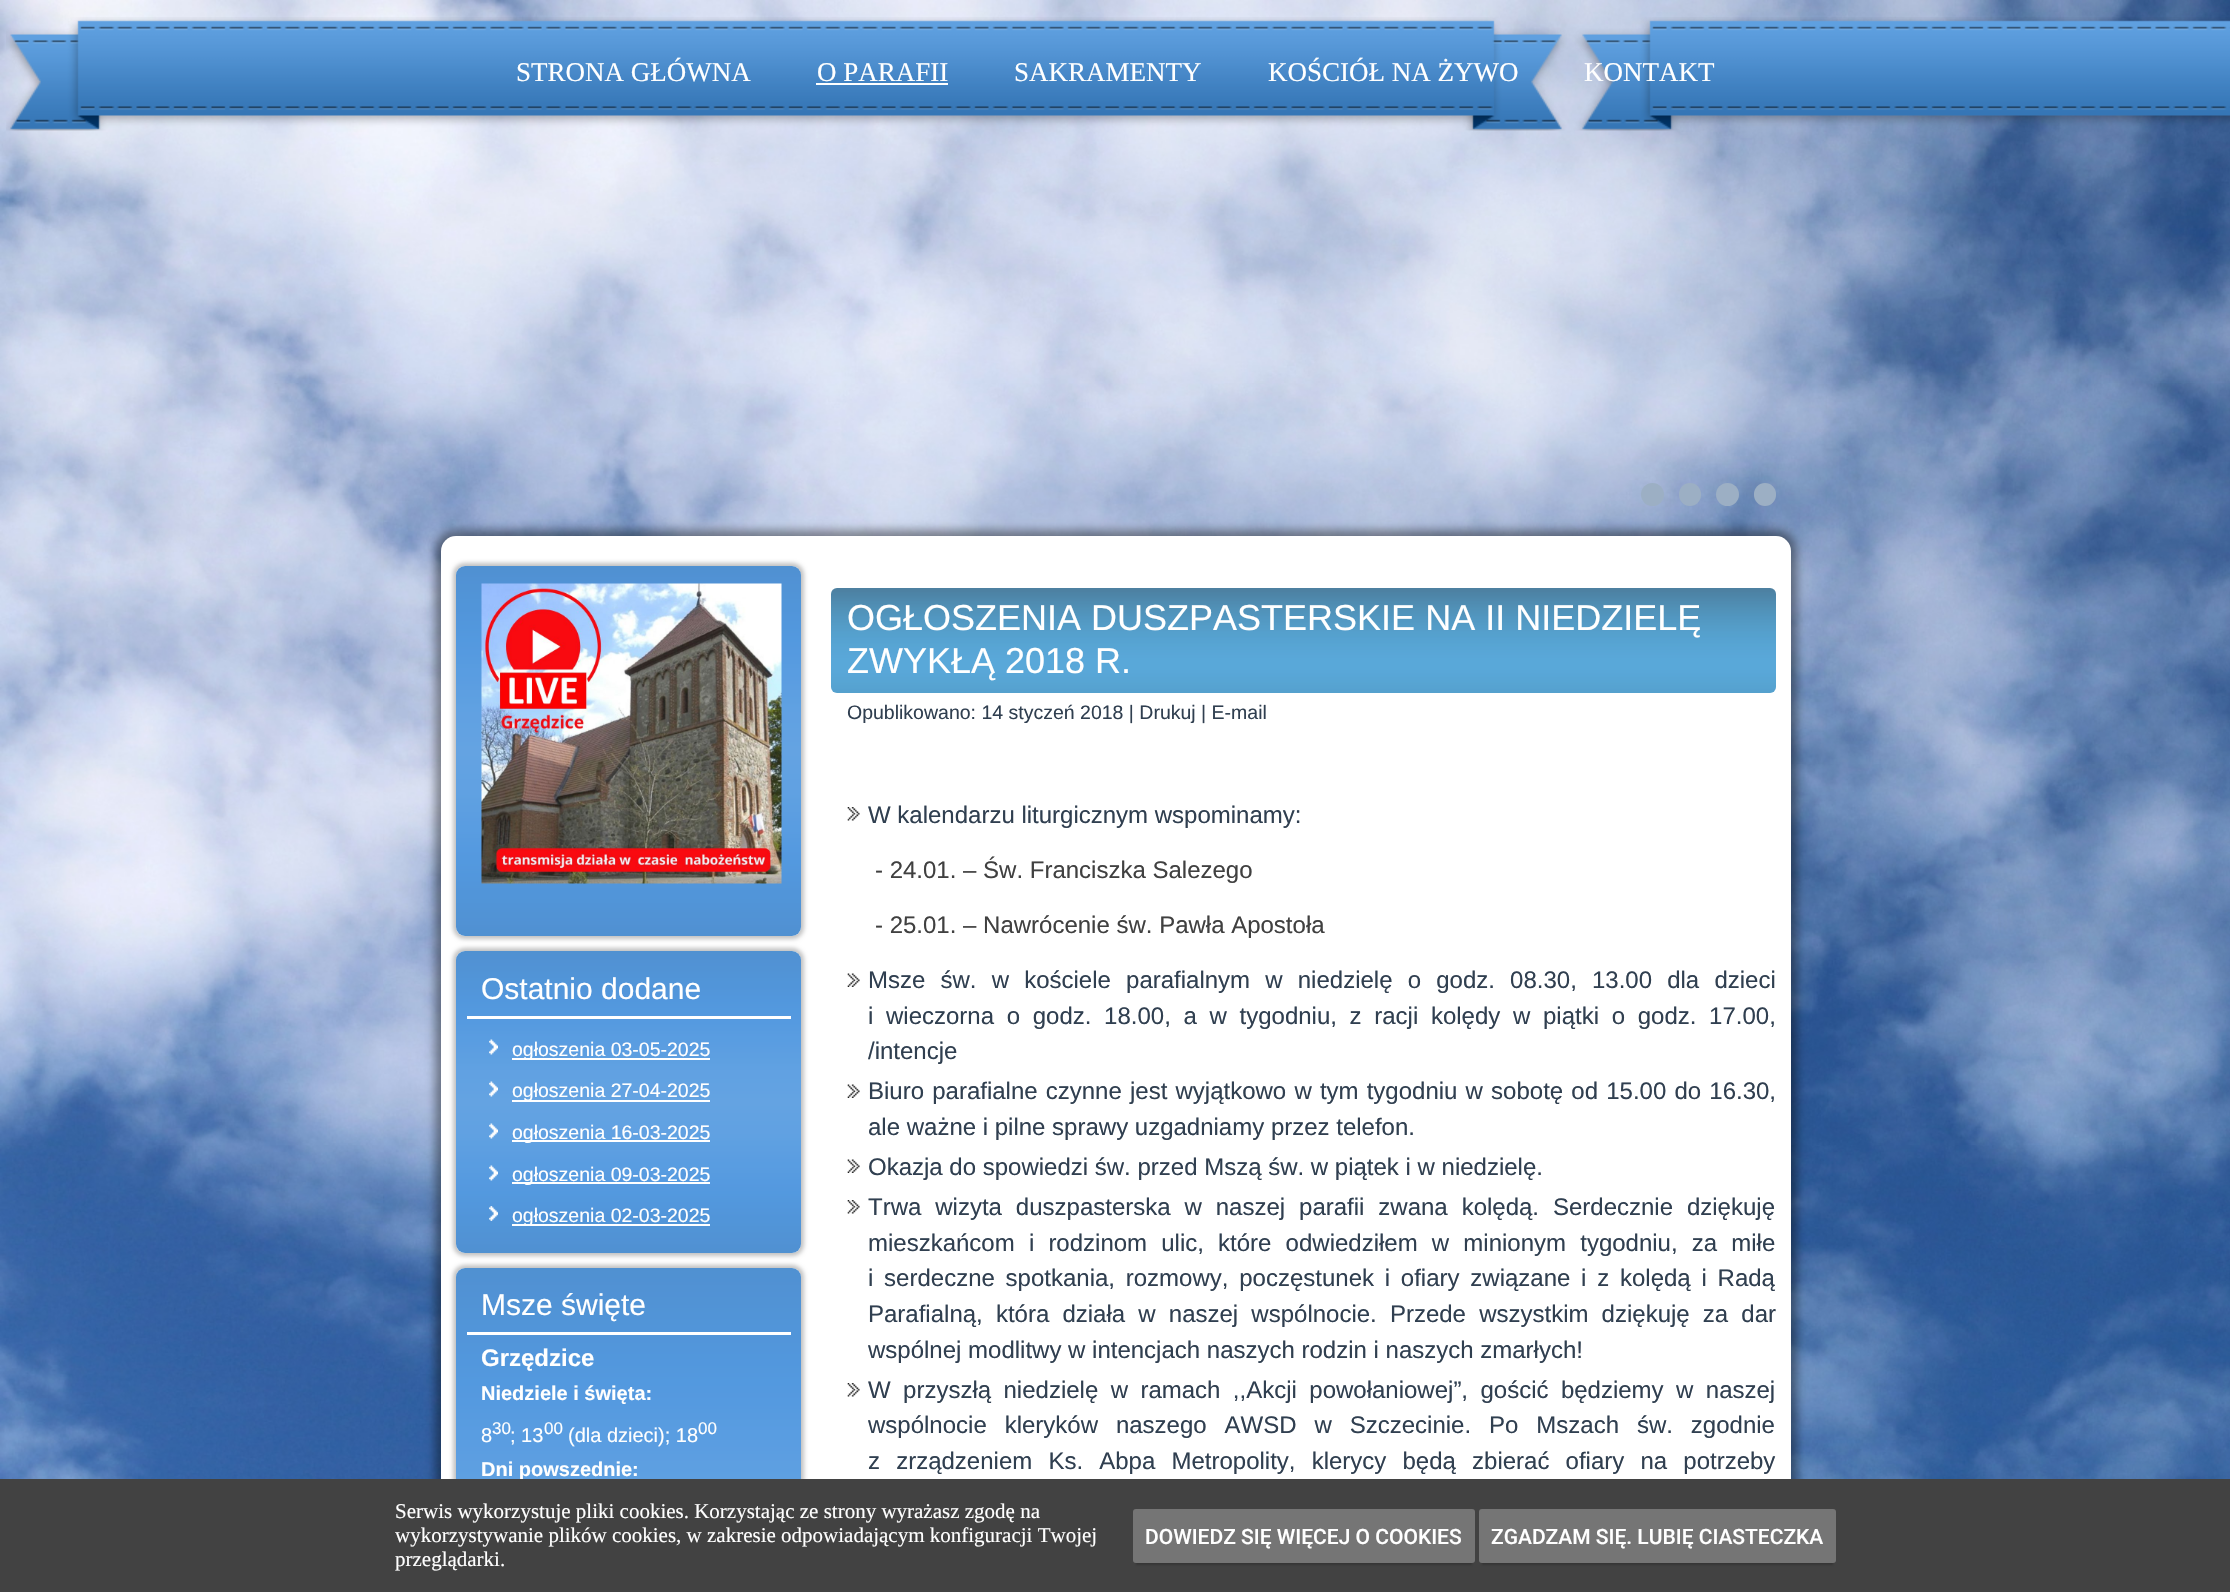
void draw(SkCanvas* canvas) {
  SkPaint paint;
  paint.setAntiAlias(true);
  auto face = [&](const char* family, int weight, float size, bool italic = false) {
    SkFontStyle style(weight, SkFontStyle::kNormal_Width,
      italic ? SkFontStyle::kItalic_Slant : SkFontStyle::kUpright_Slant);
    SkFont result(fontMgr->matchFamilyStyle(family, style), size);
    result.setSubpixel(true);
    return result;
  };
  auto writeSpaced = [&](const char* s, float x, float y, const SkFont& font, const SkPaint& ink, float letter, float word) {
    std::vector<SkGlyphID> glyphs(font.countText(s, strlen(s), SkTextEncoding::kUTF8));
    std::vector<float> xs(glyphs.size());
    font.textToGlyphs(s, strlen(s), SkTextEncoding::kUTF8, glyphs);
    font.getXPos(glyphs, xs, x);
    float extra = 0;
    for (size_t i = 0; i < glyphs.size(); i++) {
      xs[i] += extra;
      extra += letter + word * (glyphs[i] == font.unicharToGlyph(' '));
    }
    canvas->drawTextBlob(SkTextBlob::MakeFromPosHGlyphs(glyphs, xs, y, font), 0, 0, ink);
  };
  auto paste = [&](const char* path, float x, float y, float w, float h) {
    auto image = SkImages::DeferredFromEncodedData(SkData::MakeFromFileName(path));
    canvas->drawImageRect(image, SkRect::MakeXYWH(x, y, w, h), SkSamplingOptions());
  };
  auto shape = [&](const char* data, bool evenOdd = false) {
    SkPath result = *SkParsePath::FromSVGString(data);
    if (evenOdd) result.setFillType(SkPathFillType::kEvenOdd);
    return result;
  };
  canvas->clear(0xffffffff);
  paste("img/1.png", 0, 0, 2230, 1479);
  paste("img/2.png", 6, 17, 2224, 114);
  paint.setColor(0xffffffff);
  canvas->drawRect(SkRect::MakeXYWH(816, 83, 132, 2), paint);
  paint.setColor(0xff9cafc4);
  canvas->drawCircle(1652.5f, 494.5f, 11.5f, paint);
  canvas->drawRoundRect(SkRect::MakeXYWH(1679, 483, 22, 23), 11, 11, paint);
  canvas->drawCircle(1727.5f, 494.5f, 11.5f, paint);
  canvas->drawRoundRect(SkRect::MakeXYWH(1754, 483, 22, 23), 11, 11, paint);
  paint.setColor(0x66000000);
  paint.setMaskFilter(SkMaskFilter::MakeBlur(kNormal_SkBlurStyle, 5));
  canvas->drawRoundRect(SkRect::MakeXYWH(435, 530, 1362, 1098), 21, 21, paint);
  paint.setMaskFilter(nullptr);
  paint.setColor(0xffffffff);
  canvas->drawRoundRect(SkRect::MakeXYWH(441, 536, 1350, 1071), 15, 15, paint);
  canvas->save();
  canvas->clipPath(shape("M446 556H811V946H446ZM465 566H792C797 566 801 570 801 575V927C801 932 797 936 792 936H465C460 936 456 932 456 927V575C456 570 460 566 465 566Z", true), true);
  paint.setColor(0x3d000000);
  paint.setMaskFilter(SkMaskFilter::MakeBlur(kNormal_SkBlurStyle, 2));
  canvas->drawRoundRect(SkRect::MakeXYWH(453, 563, 351, 376), 12, 12, paint);
  paint.setMaskFilter(nullptr);
  canvas->restore();
  {
    const SkColor colors[] = {0xcc2475c6, 0xcc287fd7, 0xcc398adb, 0xcc3d8cdb, 0xcc398adb, 0xcc287fd7, 0xcc2475c6};
    const float stops[] = {0, 0.2f, 0.4f, 0.5f, 0.6f, 0.8f, 1};
    const SkPoint ends[] = {{629, 566}, {629, 936}};
    paint.setShader(SkGradientShader::MakeLinear(ends, colors, stops, 7, SkTileMode::kClamp));
    paint.setAlpha(255);
  }
  canvas->drawRoundRect(SkRect::MakeXYWH(456, 566, 345, 370), 9, 9, paint);
  paste("img/3.png", 481, 583, 301, 301);
  canvas->save();
  canvas->clipPath(shape("M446 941H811V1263H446ZM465 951H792C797 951 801 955 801 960V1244C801 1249 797 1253 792 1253H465C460 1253 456 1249 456 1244V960C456 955 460 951 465 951Z", true), true);
  paint.setShader(nullptr);
  paint.setColor(0x3d000000);
  paint.setMaskFilter(SkMaskFilter::MakeBlur(kNormal_SkBlurStyle, 2));
  canvas->drawRoundRect(SkRect::MakeXYWH(453, 948, 351, 308), 12, 12, paint);
  paint.setMaskFilter(nullptr);
  canvas->restore();
  {
    const SkColor colors[] = {0xcc2475c6, 0xcc287fd7, 0xcc398adb, 0xcc3d8cdb, 0xcc398adb, 0xcc287fd7, 0xcc2475c6};
    const float stops[] = {0, 0.2f, 0.4f, 0.5f, 0.6f, 0.8f, 1};
    const SkPoint ends[] = {{629, 951}, {629, 1253}};
    paint.setShader(SkGradientShader::MakeLinear(ends, colors, stops, 7, SkTileMode::kClamp));
    paint.setAlpha(255);
  }
  canvas->drawRoundRect(SkRect::MakeXYWH(456, 951, 345, 302), 9, 9, paint);
  paint.setShader(nullptr);
  paint.setColor(0xffffffff);
  canvas->drawRect(SkRect::MakeXYWH(467, 1016, 324, 3), paint);
  paste("img/4.png", 489, 1039, 9, 16);
  canvas->drawRect(SkRect::MakeXYWH(512, 1058, 198, 2), paint);
  paste("img/5.png", 489, 1081, 9, 16);
  canvas->drawRect(SkRect::MakeXYWH(512, 1100, 198, 2), paint);
  paste("img/6.png", 489, 1123, 9, 16);
  canvas->drawRect(SkRect::MakeXYWH(512, 1140, 198, 2), paint);
  paste("img/7.png", 489, 1165, 9, 16);
  canvas->drawRect(SkRect::MakeXYWH(512, 1182, 198, 2), paint);
  paste("img/8.png", 489, 1206, 9, 15);
  canvas->drawRect(SkRect::MakeXYWH(512, 1224, 198, 2), paint);
  canvas->save();
  canvas->clipPath(shape("M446 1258H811V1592H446ZM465 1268H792C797 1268 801 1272 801 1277V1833C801 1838 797 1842 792 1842H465C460 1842 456 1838 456 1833V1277C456 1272 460 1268 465 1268Z", true), true);
  paint.setColor(0x3d000000);
  paint.setMaskFilter(SkMaskFilter::MakeBlur(kNormal_SkBlurStyle, 2));
  canvas->drawRoundRect(SkRect::MakeXYWH(453, 1265, 351, 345), 12, 12, paint);
  paint.setMaskFilter(nullptr);
  canvas->restore();
  {
    const SkColor colors[] = {0xcc2475c6, 0xcc287fd7, 0xcc398adb, 0xcc3d8cdb, 0xcc398adb, 0xcc287fd7, 0xcc2475c6};
    const float stops[] = {0, 0.2f, 0.4f, 0.5f, 0.6f, 0.8f, 1};
    const SkPoint ends[] = {{629, 1268}, {629, 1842}};
    paint.setShader(SkGradientShader::MakeLinear(ends, colors, stops, 7, SkTileMode::kClamp));
    paint.setAlpha(255);
  }
  canvas->drawRoundRect(SkRect::MakeXYWH(456, 1268, 345, 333), 9, 9, paint);
  paint.setShader(nullptr);
  paint.setColor(0xffffffff);
  canvas->drawRect(SkRect::MakeXYWH(467, 1332, 324, 3), paint);
  paste("img/9.png", 831, 588, 945, 105);
  paste("img/10.png", 847, 807, 13, 14);
  paste("img/11.png", 847, 973, 13, 14);
  paste("img/11.png", 847, 1084, 13, 14);
  paste("img/11.png", 847, 1159, 13, 14);
  paste("img/10.png", 847, 1200, 13, 14);
  paste("img/10.png", 847, 1383, 13, 14);
  auto f0 = face("Liberation Serif", 400, 27);
  {
    const struct { const char* s; float x, y; } items[] = {
      {"STRONA GŁÓWNA", 516, 81},
      {"O PARAFII", 817, 81},
      {"SAKRAMENTY", 1014, 81},
      {"KOŚCIÓŁ NA ŻYWO", 1268, 81},
      {"KONTAKT", 1584, 81},
    };
    for (auto [s, x, y] : items) {
      canvas->drawString(s, x, y, f0, paint);
    }
  }
  auto f1 = face("Liberation Sans", 400, 30);
  canvas->drawString("Ostatnio dodane", 481, 999, f1, paint);
  auto f2 = face("Liberation Sans", 400, 19.5f);
  {
    const struct { const char* s; float x, y; } items[] = {
      {"ogłoszenia 03-05-2025", 512, 1056},
      {"ogłoszenia 27-04-2025", 512, 1097},
      {"ogłoszenia 16-03-2025", 512, 1139},
      {"ogłoszenia 09-03-2025", 512, 1181},
      {"ogłoszenia 02-03-2025", 512, 1222},
    };
    for (auto [s, x, y] : items) {
      canvas->drawString(s, x, y, f2, paint);
    }
  }
  canvas->drawString("Msze święte", 481, 1315, f1, paint);
  auto f3 = face("Liberation Sans", 700, 24);
  canvas->drawString("Grzędzice", 481, 1366, f3, paint);
  auto f4 = face("Liberation Sans", 700, 20);
  canvas->drawString("Niedziele i święta:", 481, 1400, f4, paint);
  auto f5 = face("Liberation Sans", 400, 20);
  canvas->drawString("8", 481, 1442, f5, paint);
  auto f6 = face("Liberation Sans", 400, 17);
  canvas->drawString("30", 492, 1434, f6, paint);
  canvas->drawString("; 13", 510, 1442, f5, paint);
  canvas->drawString("00", 544, 1434, f6, paint);
  canvas->drawString("(dla dzieci); 18", 568, 1442, f5, paint);
  canvas->drawString("00", 698, 1434, f6, paint);
  canvas->drawString("Dni powszednie:", 481, 1476, f4, paint);
  auto f7 = face("Liberation Sans", 400, 36);
  canvas->drawString("OGŁOSZENIA DUSZPASTERSKIE NA II NIEDZIELĘ", 847, 630, f7, paint);
  canvas->drawString("ZWYKŁĄ 2018 R.", 847, 673, f7, paint);
  paint.setColor(0xff303f50);
  canvas->drawString("Opublikowano: 14 styczeń 2018 | Drukuj | E-mail", 847, 719, f2, paint);
  auto f8 = face("Liberation Sans", 400, 24);
  canvas->drawString("W kalendarzu liturgicznym wspominamy:", 868, 823, f8, paint);
  paint.setColor(0xff404040);
  canvas->drawString("- 24.01. – Św. Franciszka Salezego", 875, 878, f8, paint);
  canvas->drawString("- 25.01. – Nawrócenie św. Pawła Apostoła", 875, 933, f8, paint);
  paint.setColor(0xff303f50);
  writeSpaced("Msze św. w kościele parafialnym w niedzielę o godz. 08.30, 13.00 dla dzieci", 868, 988, f8, paint, 0, 8.5f);
  writeSpaced("i wieczorna o godz. 18.00, a w tygodniu, z racji kolędy w piątki o godz. 17.00,", 868, 1024, f8, paint, 0, 6);
  canvas->drawString("/intencje", 868, 1059, f8, paint);
  writeSpaced("Biuro parafialne czynne jest wyjątkowo w tym tygodniu w sobotę od 15.00 do 16.30,", 868, 1099, f8, paint, 0, 1.5f);
  canvas->drawString("ale ważne i pilne sprawy uzgadniamy przez telefon.", 868, 1135, f8, paint);
  canvas->drawString("Okazja do spowiedzi św. przed Mszą św. w piątek i w niedzielę.", 868, 1175, f8, paint);
  writeSpaced("Trwa wizyta duszpasterska w naszej parafii zwana kolędą. Serdecznie dziękuję", 868, 1215, f8, paint, 0, 7.25f);
  writeSpaced("mieszkańcom i rodzinom ulic, które odwiedziłem w minionym tygodniu, za miłe", 868, 1251, f8, paint, 0, 7.5f);
  writeSpaced("i serdeczne spotkania, rozmowy, poczęstunek i ofiary związane i z kolędą i Radą", 868, 1286, f8, paint, 0, 4.1f);
  writeSpaced("Parafialną, która działa w naszej wspólnocie. Przede wszystkim dziękuję za dar", 868, 1322, f8, paint, 0, 6.5f);
  canvas->drawString("wspólnej modlitwy w intencjach naszych rodzin i naszych zmarłych!", 868, 1358, f8, paint);
  writeSpaced("W przyszłą niedzielę w ramach ,,Akcji powołaniowej”, gościć będziemy w naszej", 868, 1398, f8, paint, 0, 5.75f);
  writeSpaced("wspólnocie kleryków naszego AWSD w Szczecinie. Po Mszach św. zgodnie", 868, 1433, f8, paint, 0, 11.25f);
  writeSpaced("z zrządzeniem Ks. Abpa Metropolity, klerycy będą zbierać ofiary na potrzeby", 868, 1469, f8, paint, 0, 9.5f);
  paint.setColor(0xff424242);
  canvas->drawRect(SkRect::MakeXYWH(0, 1479, 2230, 113), paint);
  auto f9 = face("Liberation Serif", 400, 21);
  paint.setColor(0xffffffff);
  {
    const struct { const char* s; float x, y; } items[] = {
      {"Serwis wykorzystuje pliki cookies. Korzystając ze strony wyrażasz zgodę na", 395, 1518},
      {"wykorzystywanie plików cookies, w zakresie odpowiadającym konfiguracji Twojej", 395, 1542},
      {"przeglądarki.", 395, 1566},
    };
    for (auto [s, x, y] : items) {
      canvas->drawString(s, x, y, f9, paint);
    }
  }
  paint.setColor(0x33000000);
  paint.setMaskFilter(SkMaskFilter::MakeBlur(kNormal_SkBlurStyle, 1));
  canvas->drawRect(SkRect::MakeXYWH(1136, 1517, 336, 48), paint);
  paint.setMaskFilter(nullptr);
  paint.setColor(0xff757575);
  canvas->drawRoundRect(SkRect::MakeXYWH(1133, 1509, 342, 54), 3, 3, paint);
  auto f10 = face("Roboto", 500, 21);
  paint.setColor(0xffffffff);
  canvas->drawString("DOWIEDZ SIĘ WIĘCEJ O COOKIES", 1145, 1544, f10, paint);
  paint.setColor(0x33000000);
  paint.setMaskFilter(SkMaskFilter::MakeBlur(kNormal_SkBlurStyle, 1));
  canvas->drawRect(SkRect::MakeXYWH(1482, 1517, 351, 48), paint);
  paint.setMaskFilter(nullptr);
  paint.setColor(0xff757575);
  canvas->drawRoundRect(SkRect::MakeXYWH(1479, 1509, 357, 54), 3, 3, paint);
  paint.setColor(0xffffffff);
  canvas->drawString("ZGADZAM SIĘ. LUBIĘ CIASTECZKA", 1491, 1544, f10, paint);
}
